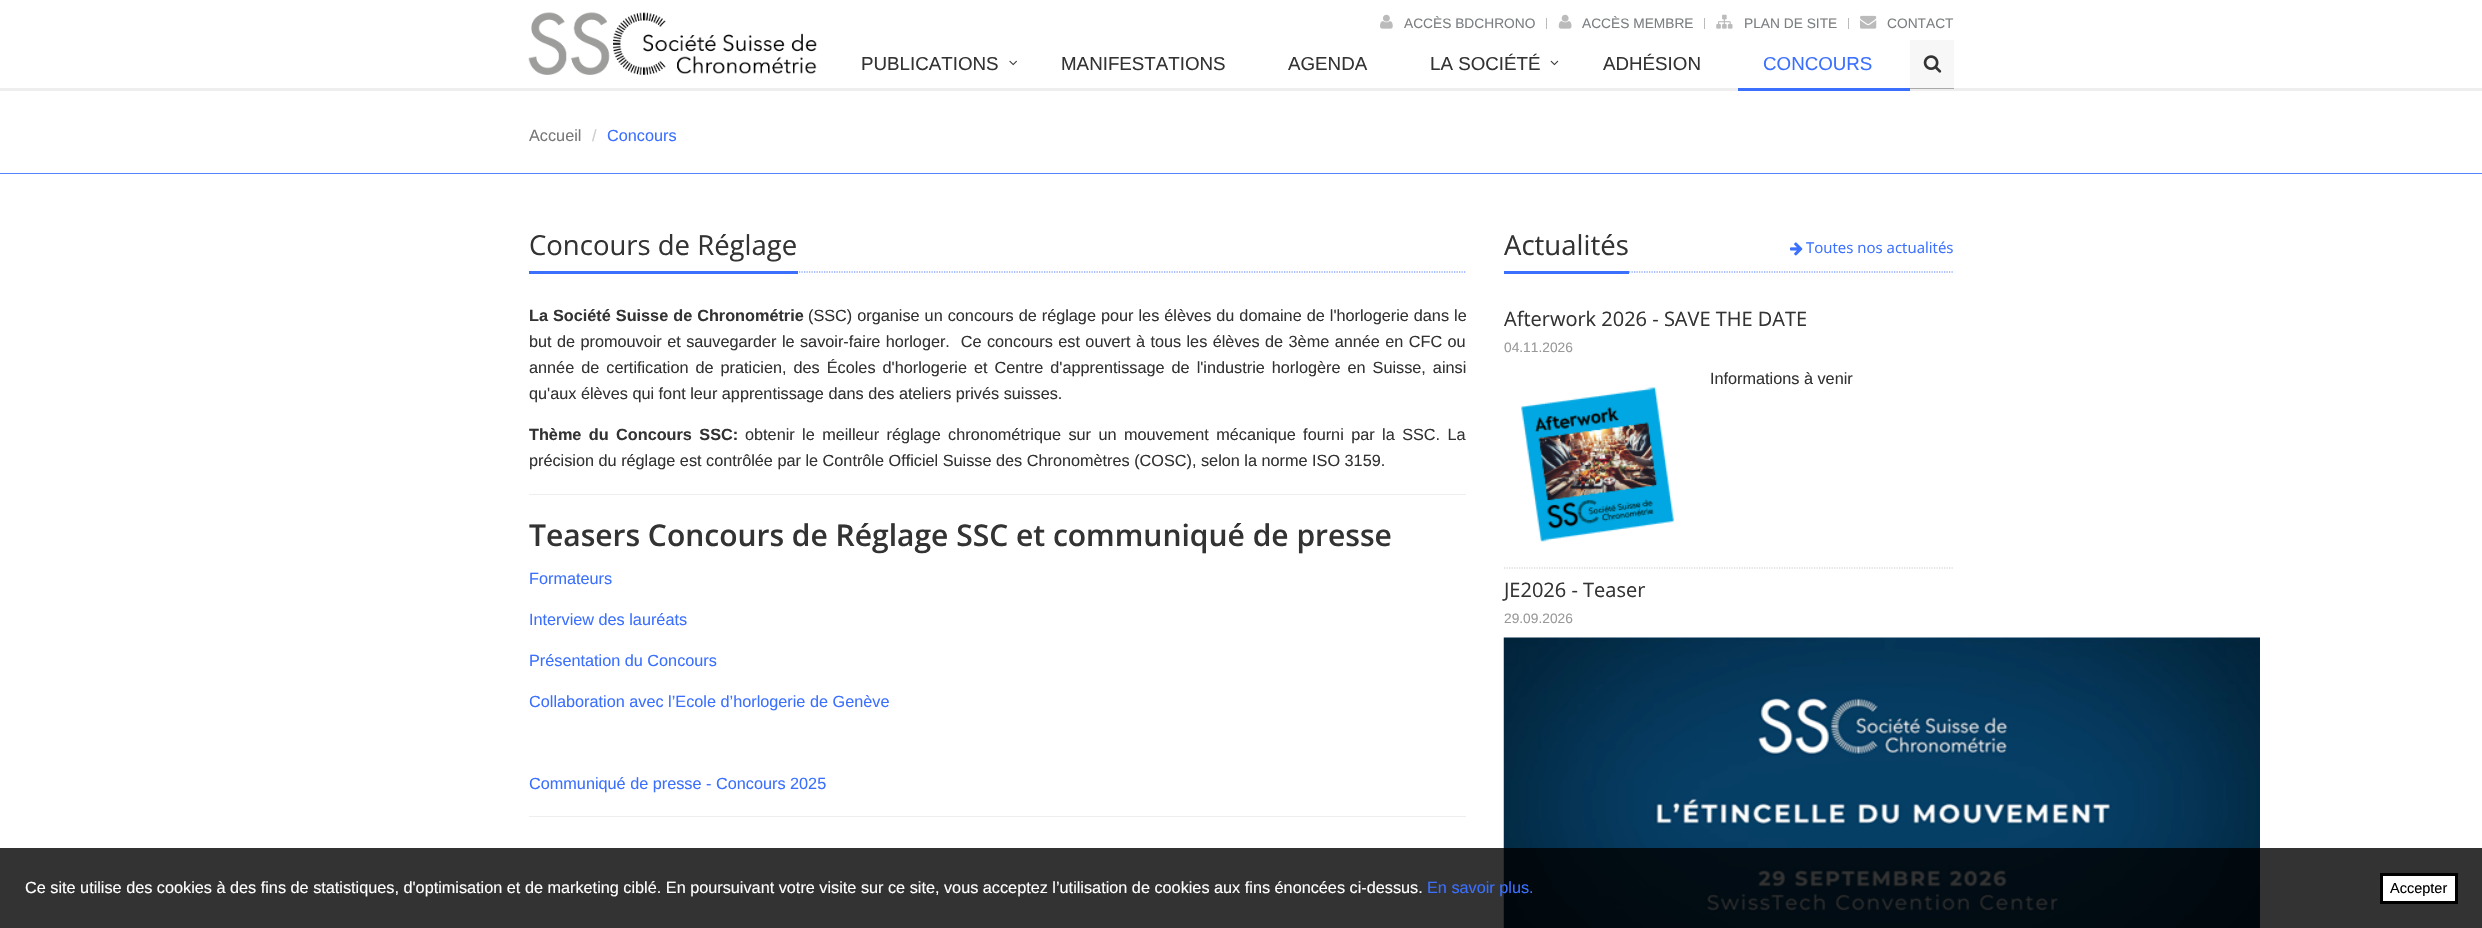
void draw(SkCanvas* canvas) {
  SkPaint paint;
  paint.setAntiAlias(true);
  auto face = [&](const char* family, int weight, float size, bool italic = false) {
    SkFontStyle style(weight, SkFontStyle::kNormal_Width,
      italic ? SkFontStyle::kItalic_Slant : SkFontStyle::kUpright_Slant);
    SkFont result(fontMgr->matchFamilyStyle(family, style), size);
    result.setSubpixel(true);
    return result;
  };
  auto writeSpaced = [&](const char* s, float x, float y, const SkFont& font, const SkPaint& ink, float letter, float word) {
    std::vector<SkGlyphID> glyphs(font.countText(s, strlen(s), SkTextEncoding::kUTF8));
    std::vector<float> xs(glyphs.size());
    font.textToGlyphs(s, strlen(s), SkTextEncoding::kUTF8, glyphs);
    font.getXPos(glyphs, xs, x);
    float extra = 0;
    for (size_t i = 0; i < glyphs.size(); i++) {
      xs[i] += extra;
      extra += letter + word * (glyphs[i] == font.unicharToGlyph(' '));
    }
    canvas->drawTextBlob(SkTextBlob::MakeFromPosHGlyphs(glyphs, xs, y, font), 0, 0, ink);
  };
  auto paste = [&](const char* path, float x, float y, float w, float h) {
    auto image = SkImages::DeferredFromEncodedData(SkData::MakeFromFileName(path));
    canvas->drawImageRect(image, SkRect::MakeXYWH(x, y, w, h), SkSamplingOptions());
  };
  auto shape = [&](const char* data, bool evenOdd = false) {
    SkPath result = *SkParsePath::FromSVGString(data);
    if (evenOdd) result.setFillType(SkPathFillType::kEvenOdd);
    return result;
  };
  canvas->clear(0xffffffff);
  paint.setColor(0xffeeeeee);
  canvas->drawRect(SkRect::MakeXYWH(0, 88, 2482, 3), paint);
  paste("img/1.png", 528, 12, 289, 63);
  paste("img/2.png", 1380, 14, 13, 15);
  paint.setColor(0xffbbbbbb);
  canvas->drawRect(SkRect::MakeXYWH(1546, 18, 1, 11), paint);
  paste("img/3.png", 1558, 14, 14, 15);
  canvas->drawRect(SkRect::MakeXYWH(1704, 18, 1, 11), paint);
  paste("img/4.png", 1716, 14, 17, 15);
  canvas->drawRect(SkRect::MakeXYWH(1848, 18, 1, 11), paint);
  paste("img/5.png", 1860, 15, 17, 14);
  paste("img/6.png", 1009, 60, 8, 6);
  paste("img/7.png", 1550, 60, 9, 6);
  {
    const struct { float x, y, w, h; SkColor color; } items[] = {
      {1738, 88, 172, 3, 0xff3b70ff},
      {1910, 40, 44, 48, 0xfff7f7f7},
      {1910, 88, 44, 1, 0xffaaaaaa},
    };
    for (auto [x, y, w, h, color] : items) {
      paint.setColor(color);
      canvas->drawRect(SkRect::MakeXYWH(x, y, w, h), paint);
    }
  }
  paste("img/8.png", 1923, 55, 19, 18);
  paint.setColor(0xff5583ff);
  canvas->drawRect(SkRect::MakeXYWH(0, 173, 2482, 1), paint);
  paint.setStroke(true);
  paint.setStrokeWidth(1.2f);
  paint.setPathEffect(SkDashPathEffect::Make({{1.25f, 1.25f}}, 0));
  canvas->drawPath(shape("M529 272H1466"), paint);
  paint.setPathEffect(nullptr);
  paint.setStroke(false);
  {
    const struct { float x, y, w, h; SkColor color; } items[] = {
      {529, 271, 269, 3, 0xff3b70ff},
      {529, 494, 937, 1, 0xffeeeeee},
      {529, 816, 937, 1, 0xffeeeeee},
    };
    for (auto [x, y, w, h, color] : items) {
      paint.setColor(color);
      canvas->drawRect(SkRect::MakeXYWH(x, y, w, h), paint);
    }
  }
  paint.setStroke(true);
  paint.setColor(0xff5583ff);
  paint.setPathEffect(SkDashPathEffect::Make({{1.25f, 1.25f}}, 0));
  canvas->drawPath(shape("M1504 272H1954"), paint);
  paint.setPathEffect(nullptr);
  paint.setStroke(false);
  paint.setColor(0xff3b70ff);
  canvas->drawRect(SkRect::MakeXYWH(1504, 271, 125, 3), paint);
  paste("img/9.png", 1790, 242, 13, 14);
  paint.setStroke(true);
  paint.setColor(0xffcccccc);
  paint.setPathEffect(SkDashPathEffect::Make({{1.25f, 1.25f}}, 0));
  canvas->drawPath(shape("M1504 568H1954"), paint);
  paint.setPathEffect(nullptr);
  paste("img/10.png", 1521, 387, 153, 155);
  paste("img/11.png", 1503, 637, 757, 291);
  paint.setStroke(false);
  paint.setColor(0xcc000000);
  canvas->drawRect(SkRect::MakeXYWH(0, 848, 2482, 80), paint);
  paint.setColor(0xffffffff);
  canvas->drawRect(SkRect::MakeXYWH(2381.5f, 874.5f, 75, 28), paint);
  paint.setStroke(true);
  paint.setStrokeWidth(3);
  paint.setColor(0xff000000);
  canvas->drawRect(SkRect::MakeXYWH(2381.5f, 874.5f, 75, 28), paint);
  auto f0 = face("Liberation Sans", 400, 13.75f);
  paint.setStroke(false);
  paint.setColor(0xff7c8082);
  {
    const struct { const char* s; float x, y; } items[] = {
      {"ACCÈS BDCHRONO", 1404, 28},
      {"ACCÈS MEMBRE", 1582, 28},
      {"PLAN DE SITE", 1744, 28},
      {"CONTACT", 1887, 28},
    };
    for (auto [s, x, y] : items) {
      canvas->drawString(s, x, y, f0, paint);
    }
  }
  auto f1 = face("Liberation Sans", 400, 18.75f);
  paint.setColor(0xff333333);
  {
    const struct { const char* s; float x, y; } items[] = {
      {"PUBLICATIONS", 861, 70},
      {"MANIFESTATIONS", 1061, 70},
      {"AGENDA", 1288, 70},
      {"LA SOCIÉTÉ", 1430, 70},
      {"ADHÉSION", 1603, 70},
    };
    for (auto [s, x, y] : items) {
      canvas->drawString(s, x, y, f1, paint);
    }
  }
  paint.setColor(0xff3b70ff);
  canvas->drawString("CONCOURS", 1763, 70, f1, paint);
  auto f2 = face("Liberation Sans", 400, 16.25f);
  paint.setColor(0xff777777);
  canvas->drawString("Accueil", 529, 141, f2, paint);
  paint.setColor(0xffcccccc);
  canvas->drawString("/", 592, 141, f2, paint);
  paint.setColor(0xff3b70ff);
  canvas->drawString("Concours", 607, 141, f2, paint);
  auto f3 = face("Open Sans", 400, 27.5f);
  paint.setColor(0xff333333);
  canvas->drawString("Concours de Réglage", 529, 255, f3, paint);
  auto f4 = face("Liberation Sans", 700, 16.25f);
  writeSpaced("La Société Suisse de Chronométrie", 529, 321, f4, paint, 0, 0.5f);
  writeSpaced("(SSC) organise un concours de réglage pour les élèves du domaine de l'horlogerie dans le", 808, 321, f2, paint, 0, 0.5f);
  writeSpaced("but de promouvoir et sauvegarder le savoir-faire horloger.  Ce concours est ouvert à tous les élèves de 3ème année en CFC ou", 529, 347, f2, paint, 0, 0.9f);
  writeSpaced("année de certification de praticien, des Écoles d'horlogerie et Centre d'apprentissage de l'industrie horlogère en Suisse, ainsi", 529, 373, f2, paint, 0, 2.5f);
  canvas->drawString("qu'aux élèves qui font leur apprentissage dans des ateliers privés suisses.", 529, 399, f2, paint);
  writeSpaced("Thème du Concours SSC:", 529, 440, f4, paint, 0, 2.9f);
  writeSpaced("obtenir le meilleur réglage chronométrique sur un mouvement mécanique fourni par la SSC. La", 745, 440, f2, paint, 0, 2.9f);
  canvas->drawString("précision du réglage est contrôlée par le Contrôle Officiel Suisse des Chronomètres (COSC), selon la norme ISO 3159.", 529, 466, f2, paint);
  auto f5 = face("Open Sans", 600, 30);
  canvas->drawString("Teasers Concours de Réglage SSC et communiqué de presse", 529, 546, f5, paint);
  paint.setColor(0xff3b70ff);
  {
    const struct { const char* s; float x, y; } items[] = {
      {"Formateurs", 529, 584},
      {"Interview des lauréats", 529, 625},
      {"Présentation du Concours", 529, 666},
      {"Collaboration avec l’Ecole d’horlogerie de Genève", 529, 707},
      {"Communiqué de presse - Concours 2025", 529, 789},
    };
    for (auto [s, x, y] : items) {
      canvas->drawString(s, x, y, f2, paint);
    }
  }
  paint.setColor(0xff333333);
  canvas->drawString("Actualités", 1504, 255, f3, paint);
  auto f6 = face("Open Sans", 400, 15);
  paint.setColor(0xff3b70ff);
  canvas->drawString("Toutes nos actualités", 1806, 253, f6, paint);
  auto f7 = face("Open Sans", 400, 20);
  paint.setColor(0xff333333);
  canvas->drawString("Afterwork 2026 - SAVE THE DATE", 1504, 326, f7, paint);
  paint.setColor(0xff999999);
  canvas->drawString("04.11.2026", 1504, 352, f0, paint);
  paint.setColor(0xff333333);
  canvas->drawString("Informations à venir", 1710, 384, f2, paint);
  canvas->drawString("JE2026 - Teaser", 1504, 597, f7, paint);
  paint.setColor(0xff999999);
  canvas->drawString("29.09.2026", 1504, 623, f0, paint);
  paint.setColor(0xffffffff);
  canvas->drawString("Ce site utilise des cookies à des fins de statistiques, d'optimisation et de marketing ciblé. En poursuivant votre visite sur ce site, vous acceptez l’utilisation de cookies aux fins énoncées ci-dessus.", 25, 893, f2, paint);
  paint.setColor(0xff3b70ff);
  canvas->drawString("En savoir plus.", 1427, 893, f2, paint);
  auto f8 = face("Liberation Sans", 400, 14.5f);
  paint.setColor(0xff000000);
  canvas->drawString("Accepter", 2390, 893, f8, paint);
}
